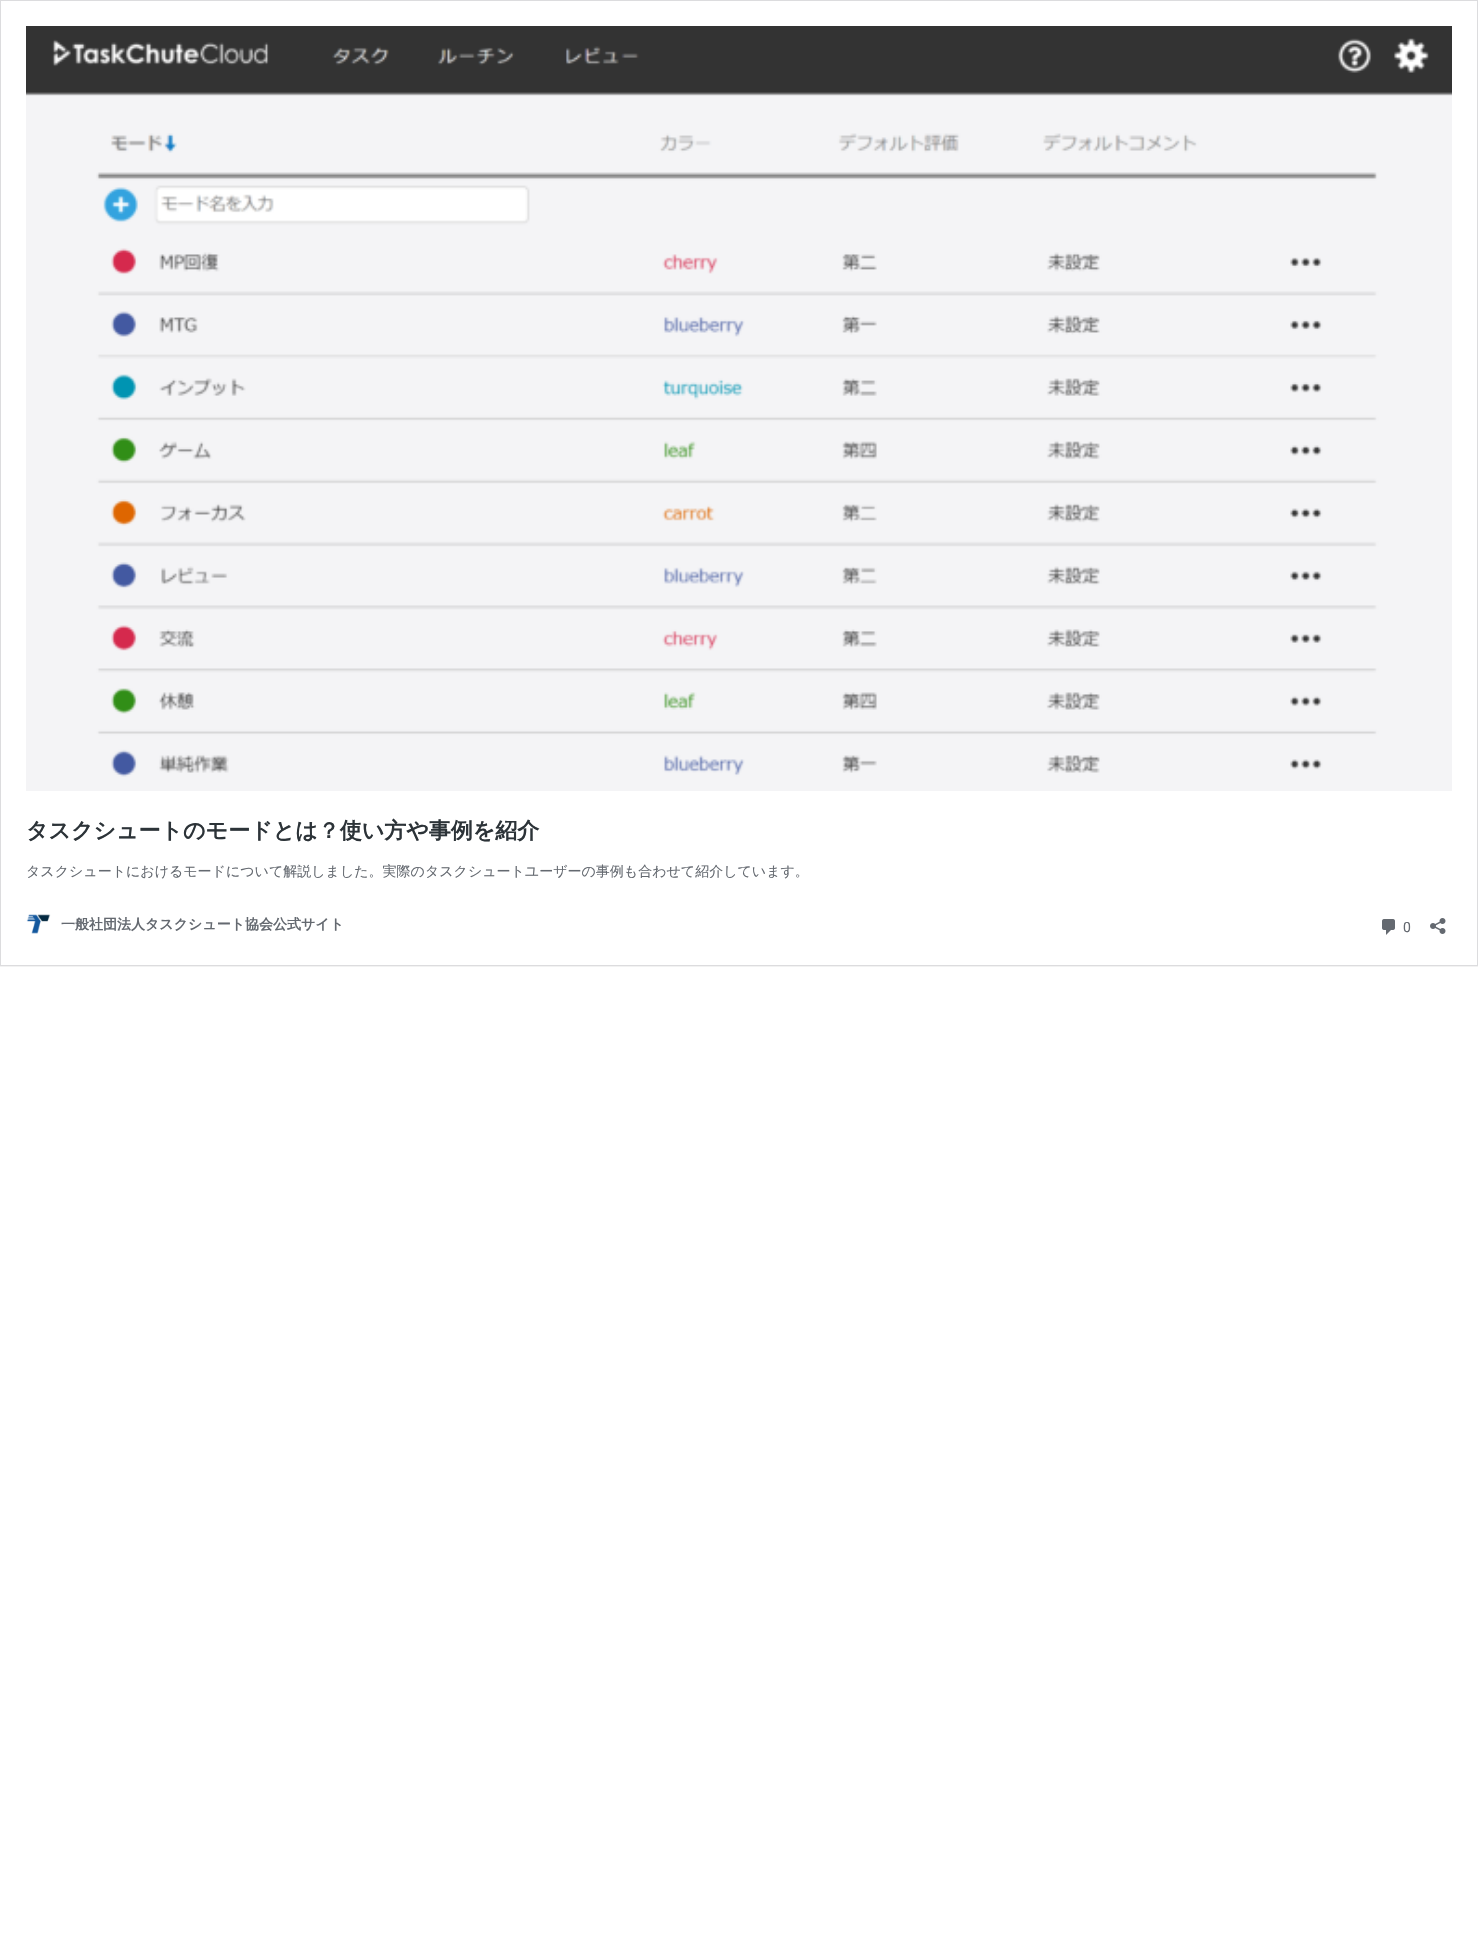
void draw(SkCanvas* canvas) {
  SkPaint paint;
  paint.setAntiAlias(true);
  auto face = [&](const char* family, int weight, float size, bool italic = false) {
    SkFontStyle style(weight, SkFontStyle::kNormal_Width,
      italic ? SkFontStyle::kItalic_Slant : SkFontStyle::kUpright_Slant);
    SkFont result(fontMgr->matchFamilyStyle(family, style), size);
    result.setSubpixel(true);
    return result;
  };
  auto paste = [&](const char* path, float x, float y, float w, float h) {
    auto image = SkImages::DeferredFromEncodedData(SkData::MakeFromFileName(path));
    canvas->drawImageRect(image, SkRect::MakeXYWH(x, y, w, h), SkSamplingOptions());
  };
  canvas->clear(0xffffffff);
  canvas->save();
  canvas->clipRect(SkRect::MakeXYWH(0, 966, 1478, 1));
  paint.setColor(0x0d000000);
  paint.setMaskFilter(SkMaskFilter::MakeBlur(kNormal_SkBlurStyle, 0.5f));
  canvas->drawRect(SkRect::MakeXYWH(0, 1, 1478, 966), paint);
  paint.setMaskFilter(nullptr);
  canvas->restore();
  paint.setStroke(true);
  paint.setStrokeWidth(1);
  paint.setColor(0xffdcdcde);
  canvas->drawRect(SkRect::MakeXYWH(0.5f, 0.5f, 1477, 965), paint);
  paste("img/1.png", 26, 26, 1426, 765);
  paste("img/2.png", 26, 914, 25, 20);
  paste("img/3.png", 1382, 919, 13, 16);
  paste("img/4.png", 1430, 918, 16, 16);
  auto f0 = face("WenQuanYi Zen Hei", 700, 22);
  paint.setStroke(false);
  paint.setColor(0xff2c3338);
  canvas->drawString("タスクシュートのモードとは？使い方や事例を紹介", 26, 838, f0, paint);
  auto f1 = face("WenQuanYi Zen Hei", 500, 14);
  paint.setColor(0xff646970);
  canvas->drawString("タスクシュートにおけるモードについて解説しました。実際のタスクシュートユーザーの事例も合わせて紹介しています。", 26, 876, f1, paint);
  auto f2 = face("WenQuanYi Zen Hei", 700, 14);
  canvas->drawString("一般社団法人タスクシュート協会公式サイト", 61, 929, f2, paint);
  auto f3 = face("Roboto", 400, 14);
  canvas->drawString("0", 1403, 932, f3, paint);
}
